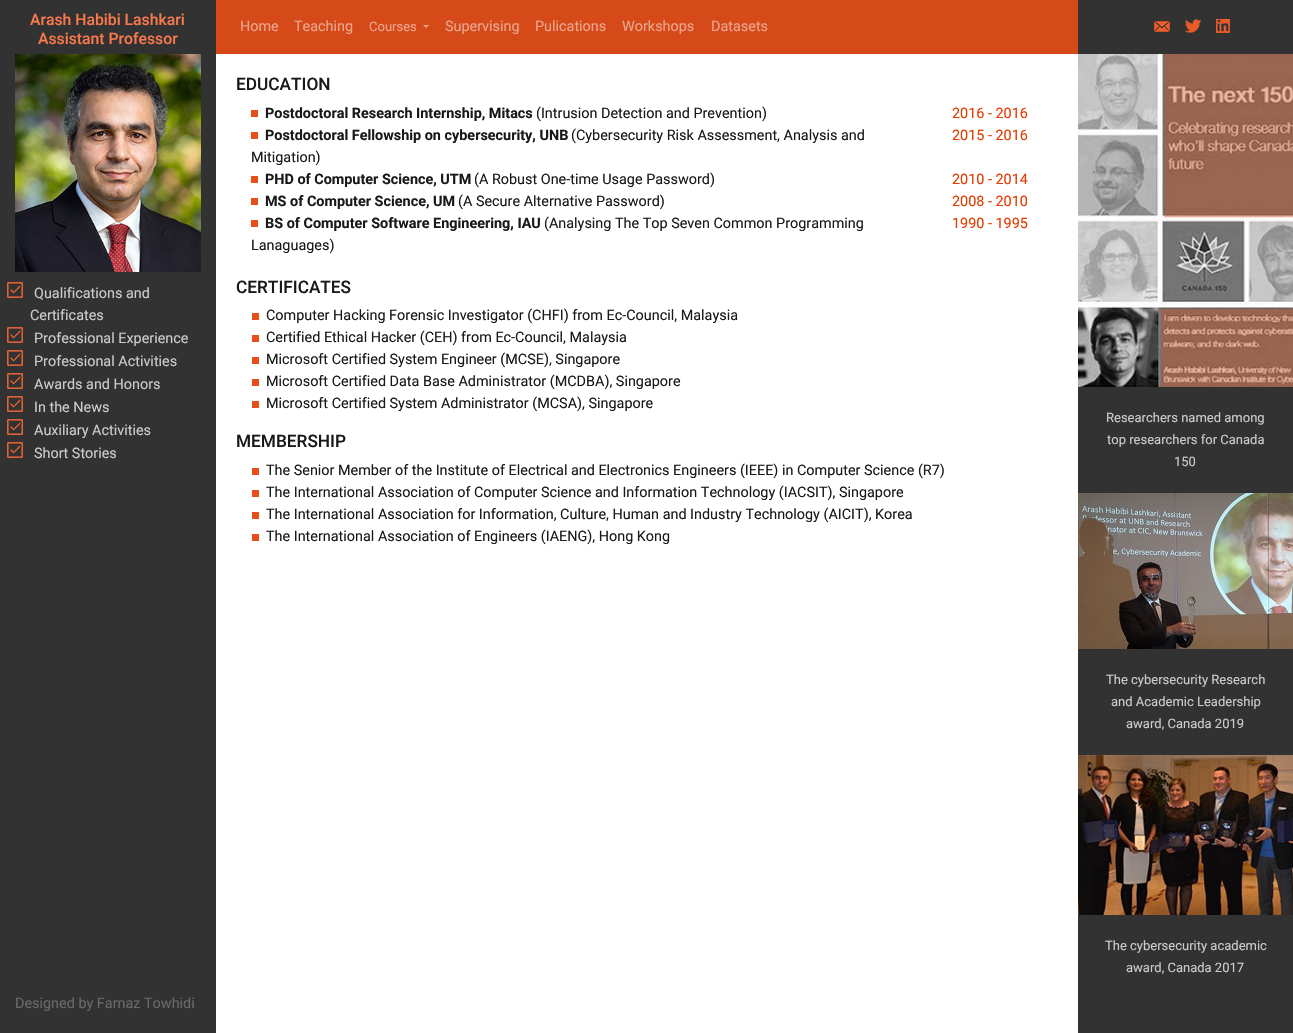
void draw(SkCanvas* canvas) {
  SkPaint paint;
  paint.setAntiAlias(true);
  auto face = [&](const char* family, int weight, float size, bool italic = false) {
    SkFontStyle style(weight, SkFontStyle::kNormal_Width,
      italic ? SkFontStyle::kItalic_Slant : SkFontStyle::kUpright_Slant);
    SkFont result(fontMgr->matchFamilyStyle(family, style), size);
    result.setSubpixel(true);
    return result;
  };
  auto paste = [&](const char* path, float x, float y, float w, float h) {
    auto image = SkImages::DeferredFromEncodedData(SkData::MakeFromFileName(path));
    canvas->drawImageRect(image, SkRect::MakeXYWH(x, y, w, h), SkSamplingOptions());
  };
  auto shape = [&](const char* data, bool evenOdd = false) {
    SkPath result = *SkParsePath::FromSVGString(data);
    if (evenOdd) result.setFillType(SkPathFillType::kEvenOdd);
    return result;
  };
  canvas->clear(0xffffffff);
  paint.setColor(0xff333232);
  canvas->drawRect(SkRect::MakeXYWH(0, 0, 216, 1033), paint);
  paste("img/1.png", 15, 54, 186, 218);
  paste("img/2.png", 7, 282, 16, 16);
  paste("img/2.png", 7, 327, 16, 16);
  paste("img/2.png", 7, 350, 16, 16);
  paste("img/2.png", 7, 373, 16, 16);
  paste("img/2.png", 7, 396, 16, 16);
  paste("img/2.png", 7, 419, 16, 16);
  paste("img/2.png", 7, 442, 16, 16);
  paint.setColor(0xffd64a1a);
  canvas->drawRect(SkRect::MakeXYWH(216, 0, 862, 54), paint);
  paint.setColor(0xffeba58d);
  canvas->drawPath(shape("M423 25H429L426 28Z"), paint);
  {
    const struct { float x, y, w, h; SkColor color; } items[] = {
      {251, 110, 7, 7, 0xffe84e18},
      {251, 132, 7, 7, 0xffe84e18},
      {251, 176, 7, 7, 0xffe84e18},
      {251, 198, 7, 7, 0xffe84e18},
      {251, 220, 7, 7, 0xffe84e18},
      {252, 313, 7, 7, 0xffe84e18},
      {252, 335, 7, 7, 0xffe84e18},
      {252, 357, 7, 7, 0xffe84e18},
      {252, 379, 7, 7, 0xffe84e18},
      {252, 401, 7, 7, 0xffe84e18},
      {252, 468, 7, 7, 0xffe84e18},
      {252, 490, 7, 7, 0xffe84e18},
      {252, 512, 7, 7, 0xffe84e18},
      {252, 534, 7, 7, 0xffe84e18},
      {1078, 0, 215, 1033, 0xff333232},
    };
    for (auto [x, y, w, h, color] : items) {
      paint.setColor(color);
      canvas->drawRect(SkRect::MakeXYWH(x, y, w, h), paint);
    }
  }
  paste("img/3.png", 1154, 21, 16, 11);
  paste("img/4.png", 1185, 19, 16, 14);
  paste("img/5.png", 1216, 19, 14, 14);
  paste("img/6.png", 1078, 54, 215, 333);
  paste("img/7.png", 1078, 493, 215, 156);
  paste("img/8.png", 1078, 755, 215, 160);
  auto f0 = face("Roboto", 500, 15.75f);
  paint.setColor(0xfff9794d);
  canvas->drawString("Arash Habibi Lashkari", 30, 25, f0, paint);
  canvas->drawString("Assistant Professor", 38, 44, f0, paint);
  auto f1 = face("Roboto", 400, 14.4f);
  paint.setColor(0xffcdcaca);
  {
    const struct { const char* s; float x, y; } items[] = {
      {"Qualifications and", 34, 298},
      {"Certificates", 30, 320},
      {"Professional Experience", 34, 343},
      {"Professional Activities", 34, 366},
      {"Awards and Honors", 34, 389},
      {"In the News", 34, 412},
      {"Auxiliary Activities", 34, 435},
      {"Short Stories", 34, 458},
    };
    for (auto [s, x, y] : items) {
      canvas->drawString(s, x, y, f1, paint);
    }
  }
  paint.setColor(0xff6a6868);
  canvas->drawString("Designed by Farnaz Towhidi", 15, 1008, f1, paint);
  paint.setColor(0xffeba58d);
  canvas->drawString("Home", 240, 31, f1, paint);
  canvas->drawString("Teaching", 294, 31, f1, paint);
  auto f2 = face("Roboto", 400, 13);
  canvas->drawString("Courses", 369, 31, f2, paint);
  {
    const struct { const char* s; float x, y; } items[] = {
      {"Supervising", 445, 31},
      {"Pulications", 535, 31},
      {"Workshops", 622, 31},
      {"Datasets", 711, 31},
    };
    for (auto [s, x, y] : items) {
      canvas->drawString(s, x, y, f1, paint);
    }
  }
  auto f3 = face("Roboto", 500, 17.25f);
  paint.setColor(0xff1a1919);
  canvas->drawString("EDUCATION", 236, 90, f3, paint);
  auto f4 = face("Roboto", 700, 14.4f);
  canvas->drawString("Postdoctoral Research Internship, Mitacs", 265, 118, f4, paint);
  canvas->drawString("(Intrusion Detection and Prevention)", 536, 118, f1, paint);
  paint.setColor(0xffe33b00);
  canvas->drawString("2016 - 2016", 952, 118, f1, paint);
  paint.setColor(0xff1a1919);
  canvas->drawString("Postdoctoral Fellowship on cybersecurity, UNB", 265, 140, f4, paint);
  canvas->drawString("(Cybersecurity Risk Assessment, Analysis and", 571, 140, f1, paint);
  canvas->drawString("Mitigation)", 251, 162, f1, paint);
  paint.setColor(0xffe33b00);
  canvas->drawString("2015 - 2016", 952, 140, f1, paint);
  paint.setColor(0xff1a1919);
  canvas->drawString("PHD of Computer Science, UTM", 265, 184, f4, paint);
  canvas->drawString("(A Robust One-time Usage Password)", 474, 184, f1, paint);
  paint.setColor(0xffe33b00);
  canvas->drawString("2010 - 2014", 952, 184, f1, paint);
  paint.setColor(0xff1a1919);
  canvas->drawString("MS of Computer Science, UM", 265, 206, f4, paint);
  canvas->drawString("(A Secure Alternative Password)", 458, 206, f1, paint);
  paint.setColor(0xffe33b00);
  canvas->drawString("2008 - 2010", 952, 206, f1, paint);
  paint.setColor(0xff1a1919);
  canvas->drawString("BS of Computer Software Engineering, IAU", 265, 228, f4, paint);
  canvas->drawString("(Analysing The Top Seven Common Programming", 544, 228, f1, paint);
  canvas->drawString("Lanaguages)", 251, 250, f1, paint);
  paint.setColor(0xffe33b00);
  canvas->drawString("1990 - 1995", 952, 228, f1, paint);
  paint.setColor(0xff1a1919);
  canvas->drawString("CERTIFICATES", 236, 293, f3, paint);
  {
    const struct { const char* s; float x, y; } items[] = {
      {"Computer Hacking Forensic Investigator (CHFI) from Ec-Council, Malaysia", 266, 320},
      {"Certified Ethical Hacker (CEH) from Ec-Council, Malaysia", 266, 342},
      {"Microsoft Certified System Engineer (MCSE), Singapore", 266, 364},
      {"Microsoft Certified Data Base Administrator (MCDBA), Singapore", 266, 386},
      {"Microsoft Certified System Administrator (MCSA), Singapore", 266, 408},
    };
    for (auto [s, x, y] : items) {
      canvas->drawString(s, x, y, f1, paint);
    }
  }
  canvas->drawString("MEMBERSHIP", 236, 447, f3, paint);
  {
    const struct { const char* s; float x, y; } items[] = {
      {"The Senior Member of the Institute of Electrical and Electronics Engineers (IEEE) in Computer Science (R7)", 266, 475},
      {"The International Association of Computer Science and Information Technology (IACSIT), Singapore", 266, 497},
      {"The International Association for Information, Culture, Human and Industry Technology (AICIT), Korea", 266, 519},
      {"The International Association of Engineers (IAENG), Hong Kong", 266, 541},
    };
    for (auto [s, x, y] : items) {
      canvas->drawString(s, x, y, f1, paint);
    }
  }
  paint.setColor(0xffcdcaca);
  {
    const struct { const char* s; float x, y; } items[] = {
      {"Researchers named among", 1106, 422},
      {"top researchers for Canada", 1107, 444},
      {"150", 1174, 466},
      {"The cybersecurity Research", 1106, 684},
      {"and Academic Leadership", 1111, 706},
      {"award, Canada 2019", 1126, 728},
      {"The cybersecurity academic", 1105, 950},
      {"award, Canada 2017", 1126, 972},
    };
    for (auto [s, x, y] : items) {
      canvas->drawString(s, x, y, f2, paint);
    }
  }
}
